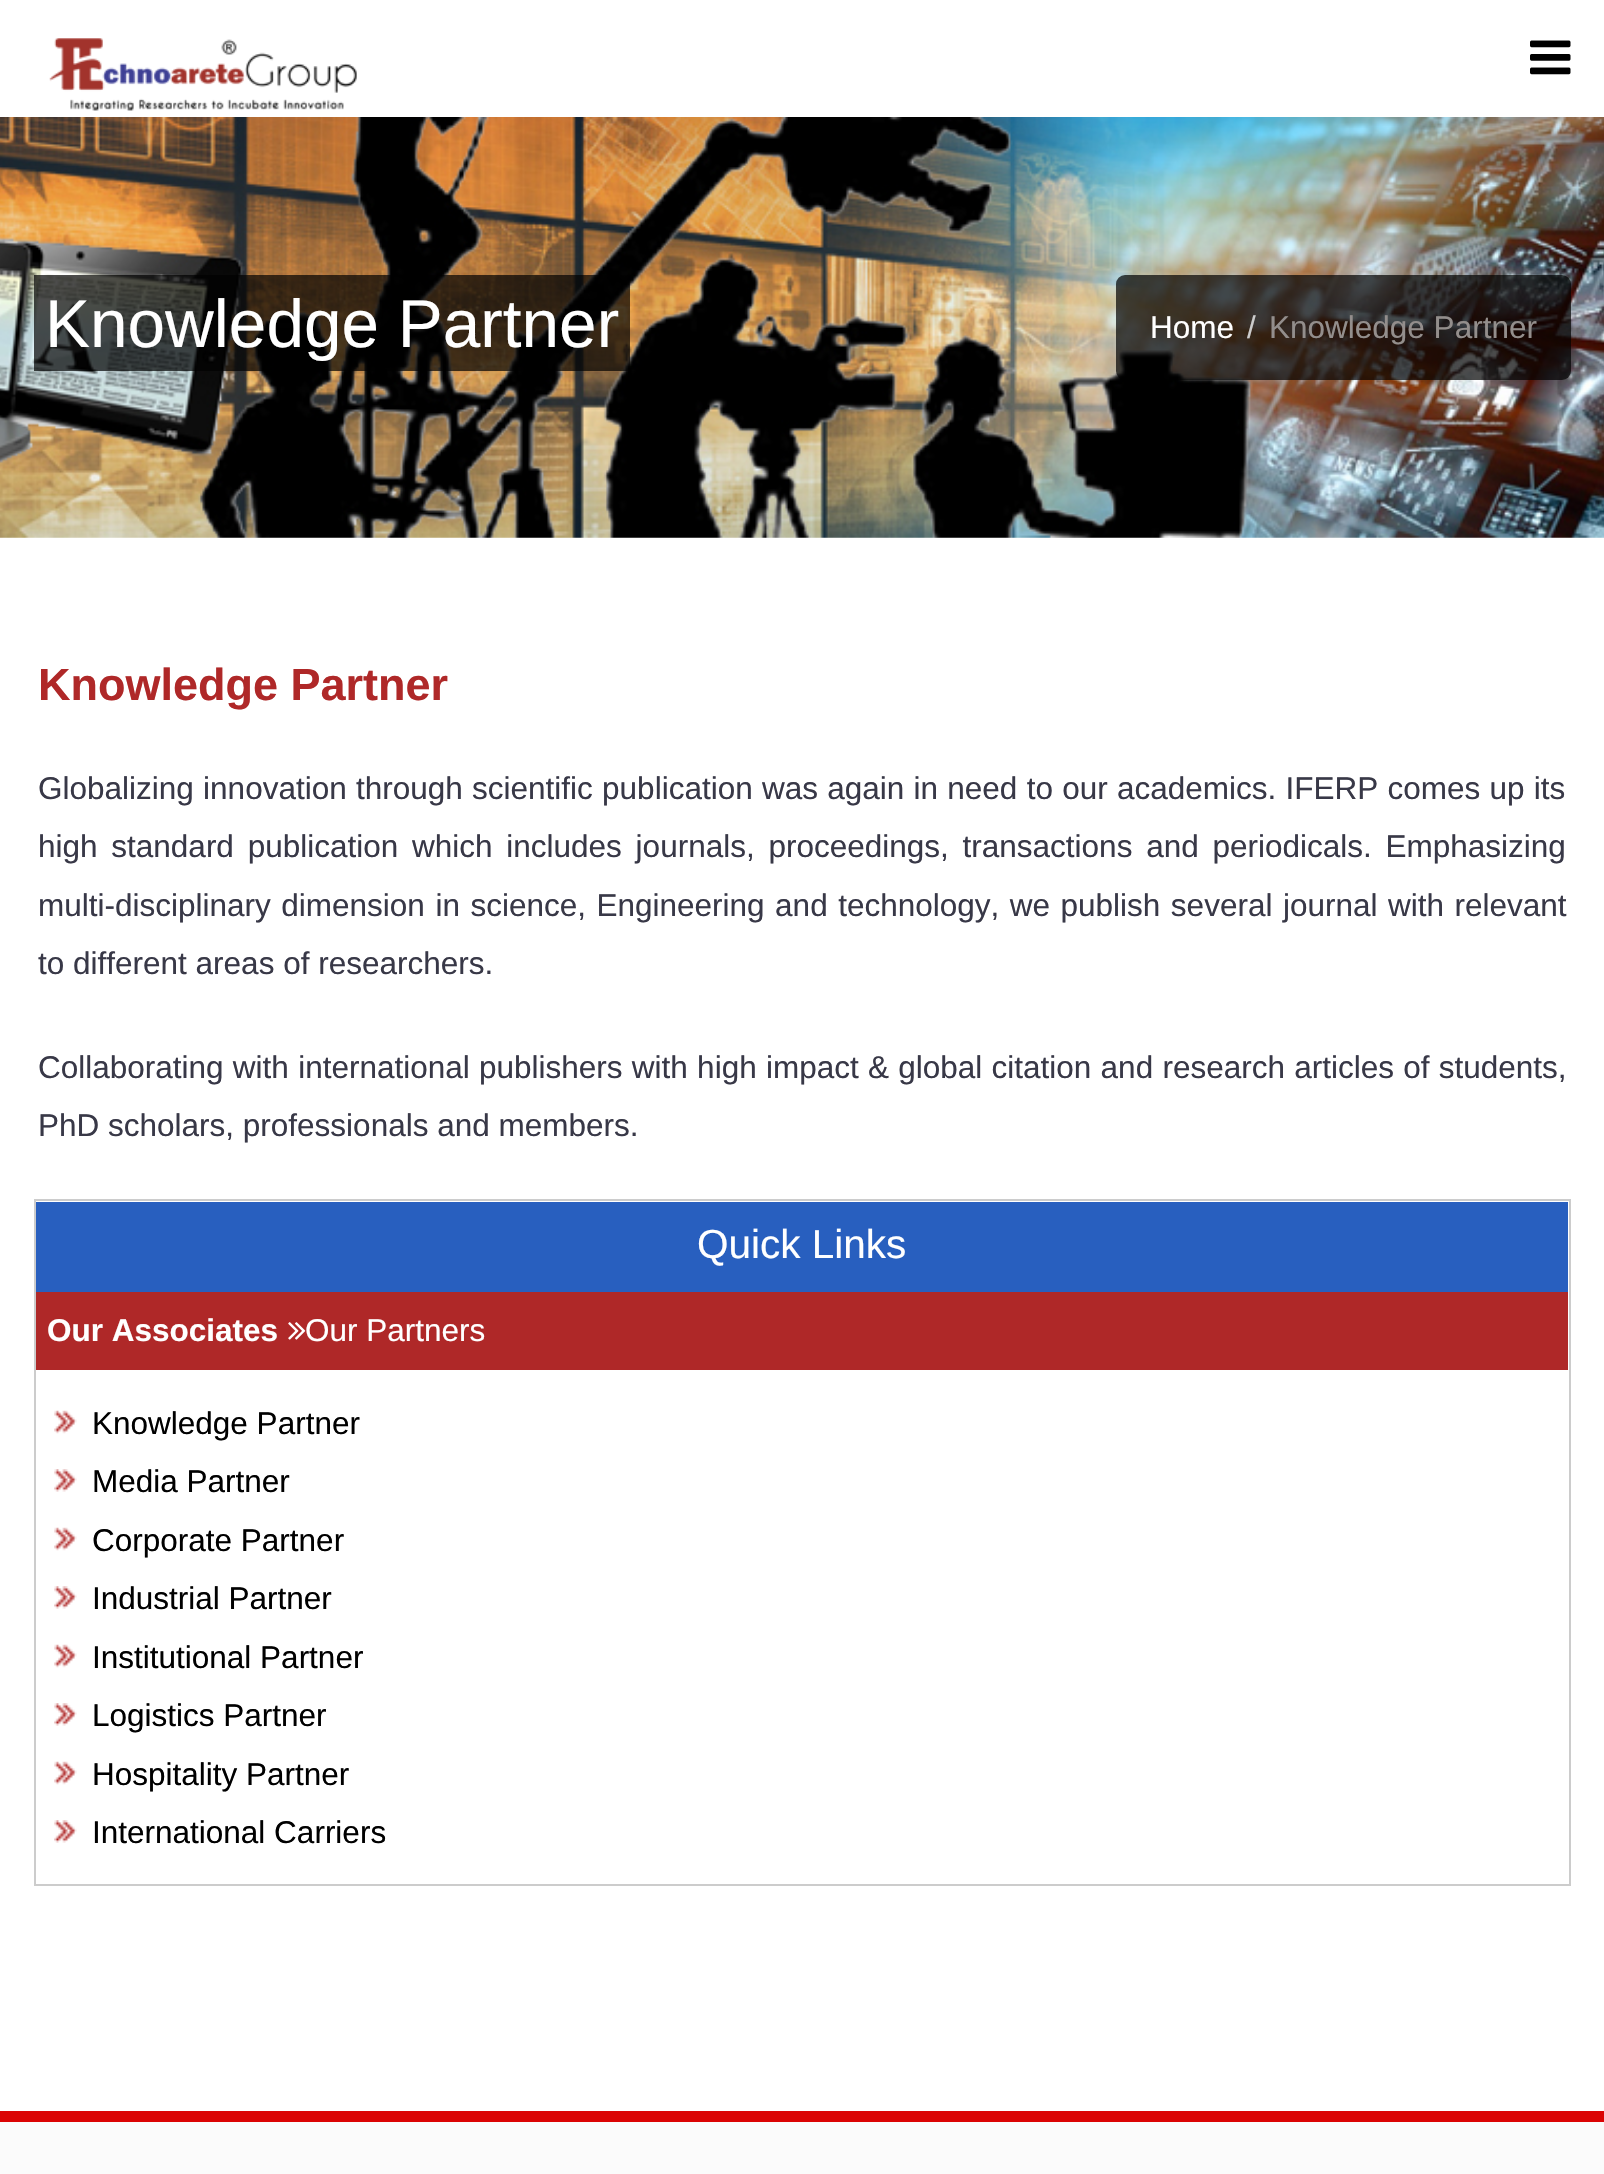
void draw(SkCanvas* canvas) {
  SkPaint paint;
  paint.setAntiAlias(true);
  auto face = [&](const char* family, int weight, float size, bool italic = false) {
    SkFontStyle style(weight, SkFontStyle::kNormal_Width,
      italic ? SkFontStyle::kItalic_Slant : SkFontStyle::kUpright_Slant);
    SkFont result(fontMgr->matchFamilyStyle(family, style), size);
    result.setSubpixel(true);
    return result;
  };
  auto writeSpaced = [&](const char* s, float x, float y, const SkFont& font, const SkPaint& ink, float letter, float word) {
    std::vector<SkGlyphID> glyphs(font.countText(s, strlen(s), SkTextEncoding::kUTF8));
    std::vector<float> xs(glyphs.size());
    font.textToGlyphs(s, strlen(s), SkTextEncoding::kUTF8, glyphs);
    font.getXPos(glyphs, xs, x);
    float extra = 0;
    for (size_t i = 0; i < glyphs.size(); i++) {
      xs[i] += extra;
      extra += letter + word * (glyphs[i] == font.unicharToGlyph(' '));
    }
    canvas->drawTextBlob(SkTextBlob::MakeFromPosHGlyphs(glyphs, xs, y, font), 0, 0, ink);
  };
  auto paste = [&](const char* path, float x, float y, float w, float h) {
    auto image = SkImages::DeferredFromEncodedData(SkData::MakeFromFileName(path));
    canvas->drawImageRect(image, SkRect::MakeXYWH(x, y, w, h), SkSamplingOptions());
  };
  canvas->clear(0xffffffff);
  paste("img/1.png", 49, 38, 308, 73);
  paste("img/2.png", 1530, 40, 41, 35);
  paste("img/3.png", 0, 117, 1604, 421);
  paint.setColor(0xb3000000);
  canvas->drawRect(SkRect::MakeXYWH(34, 275, 596, 96), paint);
  canvas->drawRoundRect(SkRect::MakeXYWH(1116, 275, 455, 105), 9, 9, paint);
  paint.setStroke(true);
  paint.setStrokeWidth(2);
  paint.setColor(0xffcccccc);
  canvas->drawRect(SkRect::MakeXYWH(35, 1200, 1535, 685), paint);
  paint.setStroke(false);
  paint.setColor(0xff285fbf);
  canvas->drawRect(SkRect::MakeXYWH(36, 1202, 1532, 90), paint);
  paint.setColor(0xffaf2828);
  canvas->drawRect(SkRect::MakeXYWH(36, 1292, 1532, 78), paint);
  paste("img/4.png", 288, 1322, 18, 18);
  paste("img/5.png", 54, 1410, 23, 24);
  paste("img/6.png", 54, 1469, 23, 23);
  paste("img/5.png", 54, 1527, 23, 24);
  paste("img/6.png", 54, 1586, 23, 23);
  paste("img/5.png", 54, 1644, 23, 24);
  paste("img/6.png", 54, 1703, 23, 23);
  paste("img/5.png", 54, 1761, 23, 24);
  paste("img/6.png", 54, 1820, 23, 23);
  paint.setColor(0xfffbfbfb);
  canvas->drawRect(SkRect::MakeXYWH(0, 2122, 1604, 52), paint);
  paint.setColor(0xffdb0404);
  canvas->drawRect(SkRect::MakeXYWH(0, 2111, 1604, 11), paint);
  auto f0 = face("Liberation Sans", 400, 67.5f);
  paint.setColor(0xffffffff);
  canvas->drawString("Knowledge Partner", 45, 347, f0, paint);
  auto f1 = face("Liberation Sans", 400, 31.5f);
  canvas->drawString("Home", 1150, 338, f1, paint);
  paint.setColor(0xffcccccc);
  canvas->drawString("/", 1247, 338, f1, paint);
  paint.setColor(0xff938e8c);
  canvas->drawString("Knowledge Partner", 1269, 338, f1, paint);
  auto f2 = face("Liberation Sans", 700, 45);
  paint.setColor(0xffaf2828);
  canvas->drawString("Knowledge Partner", 38, 700, f2, paint);
  paint.setColor(0xff383847);
  writeSpaced("Globalizing innovation through scientific publication was again in need to our academics. IFERP comes up its", 38, 799, f1, paint, 0, 0.5f);
  writeSpaced("high standard publication which includes journals, proceedings, transactions and periodicals. Emphasizing", 38, 857, f1, paint, 0, 5);
  writeSpaced("multi-disciplinary dimension in science, Engineering and technology, we publish several journal with relevant", 38, 916, f1, paint, 0, 1.75f);
  canvas->drawString("to different areas of researchers.", 38, 974, f1, paint);
  writeSpaced("Collaborating with international publishers with high impact & global citation and research articles of students,", 38, 1078, f1, paint, 0, 0.5f);
  canvas->drawString("PhD scholars, professionals and members.", 38, 1136, f1, paint);
  auto f3 = face("Liberation Sans", 400, 40.5f);
  paint.setColor(0xffffffff);
  canvas->drawString("Quick Links", 697, 1258, f3, paint);
  auto f4 = face("Liberation Sans", 700, 31.5f);
  canvas->drawString("Our Associates", 47, 1341, f4, paint);
  canvas->drawString("Our Partners", 305, 1341, f1, paint);
  paint.setColor(0xff000000);
  {
    const struct { const char* s; float x, y; } items[] = {
      {"Knowledge Partner", 92, 1434},
      {"Media Partner", 92, 1492},
      {"Corporate Partner", 92, 1551},
      {"Industrial Partner", 92, 1609},
      {"Institutional Partner", 92, 1668},
      {"Logistics Partner", 92, 1726},
      {"Hospitality Partner", 92, 1785},
      {"International Carriers", 92, 1843},
    };
    for (auto [s, x, y] : items) {
      canvas->drawString(s, x, y, f1, paint);
    }
  }
}
